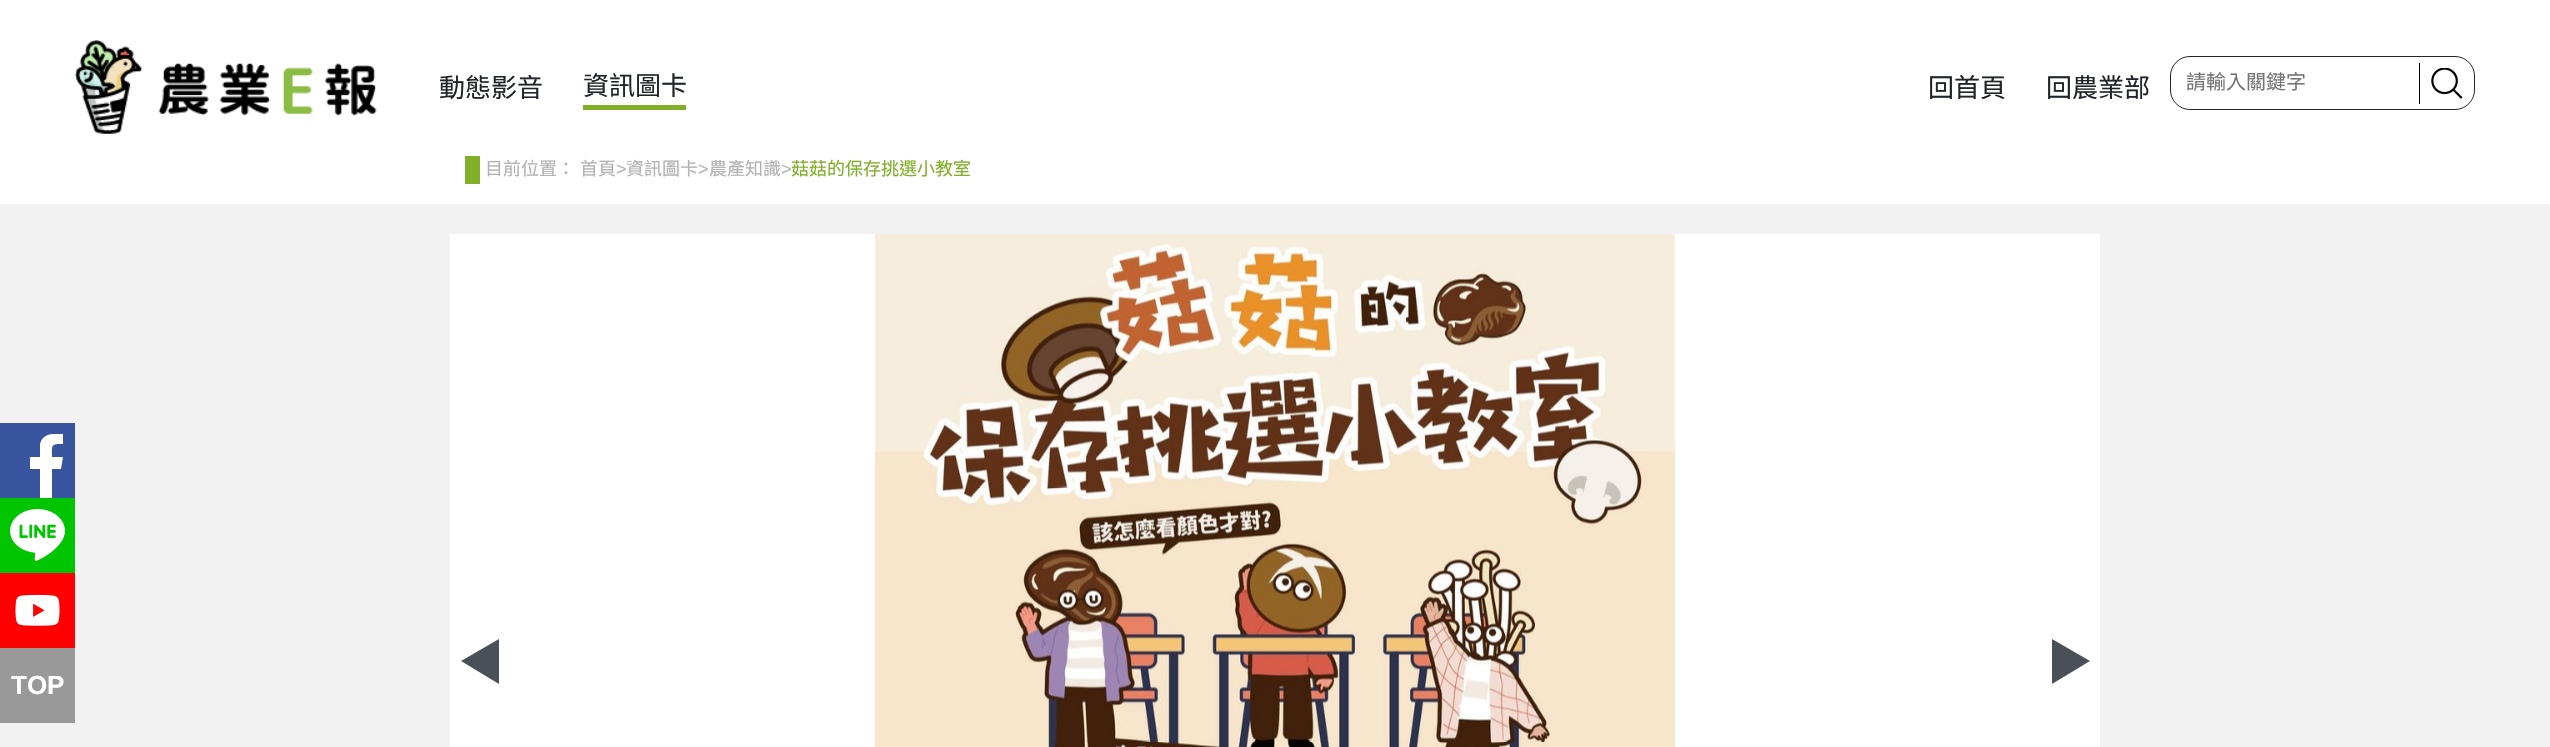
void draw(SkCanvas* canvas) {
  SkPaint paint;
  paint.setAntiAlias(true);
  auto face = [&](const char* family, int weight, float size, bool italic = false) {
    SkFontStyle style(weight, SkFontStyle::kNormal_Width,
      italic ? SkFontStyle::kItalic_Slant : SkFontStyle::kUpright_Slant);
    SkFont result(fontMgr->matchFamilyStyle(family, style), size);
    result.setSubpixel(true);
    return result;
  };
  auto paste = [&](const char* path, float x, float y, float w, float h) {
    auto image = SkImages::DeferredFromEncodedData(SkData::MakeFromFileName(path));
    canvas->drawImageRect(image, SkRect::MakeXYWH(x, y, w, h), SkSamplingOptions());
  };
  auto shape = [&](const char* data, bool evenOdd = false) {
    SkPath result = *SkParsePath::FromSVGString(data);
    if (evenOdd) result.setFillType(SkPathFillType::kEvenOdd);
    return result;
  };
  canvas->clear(0xffffffff);
  paste("img/1.png", 75, 40, 302, 94);
  paint.setColor(0xff80b028);
  canvas->drawRect(SkRect::MakeXYWH(583, 105, 103, 5), paint);
  paint.setStroke(true);
  paint.setStrokeWidth(1);
  paint.setColor(0xff212529);
  canvas->drawRoundRect(SkRect::MakeXYWH(2170.5f, 56.5f, 304, 53), 19.5f, 19.5f, paint);
  paint.setStroke(false);
  paint.setColor(0xff000000);
  canvas->drawRect(SkRect::MakeXYWH(2419, 63, 1, 41), paint);
  paste("img/2.png", 2431, 68, 32, 31);
  paint.setColor(0xfff2f2f2);
  canvas->drawRect(SkRect::MakeXYWH(0, 204, 2550, 543), paint);
  paint.setColor(0xff3a559f);
  canvas->drawRect(SkRect::MakeXYWH(0, 423, 75, 75), paint);
  paint.setColor(0xffffffff);
  canvas->drawPath(shape("M40 498V469H30V457H40V444C43 432 54 434 63 434V444C51 444 52 444 52 457H63L61 469H52V498"), paint);
  paint.setColor(0xff00c500);
  canvas->drawRect(SkRect::MakeXYWH(0, 498, 75, 75), paint);
  paste("img/3.png", 10, 509, 55, 52);
  paint.setColor(0xffff0000);
  canvas->drawRect(SkRect::MakeXYWH(0, 573, 75, 75), paint);
  paste("img/4.png", 15, 594, 45, 32);
  paint.setColor(0xff80b028);
  canvas->drawRect(SkRect::MakeXYWH(465, 156, 15, 28), paint);
  paint.setColor(0xffffffff);
  canvas->drawRect(SkRect::MakeXYWH(450, 234, 1650, 513), paint);
  paste("img/5.png", 875, 234, 800, 513);
  paint.setColor(0xff495057);
  canvas->drawPath(shape("M499 639V684L461 661Z"), paint);
  canvas->drawPath(shape("M2052 684V639L2090 661Z"), paint);
  paint.setColor(0xff999999);
  canvas->drawRect(SkRect::MakeXYWH(0, 648, 75, 75), paint);
  auto f0 = face("Noto Sans CJK TC", 400, 26);
  paint.setColor(0xff212529);
  {
    const struct { const char* s; float x, y; } items[] = {
      {"動態影音", 439, 97},
      {"資訊圖卡", 583, 95},
      {"回首頁", 1928, 97},
      {"回農業部", 2046, 97},
    };
    for (auto [s, x, y] : items) {
      canvas->drawString(s, x, y, f0, paint);
    }
  }
  auto f1 = face("Noto Sans CJK TC", 400, 20);
  paint.setColor(0xff757575);
  canvas->drawString("請輸入關鍵字", 2186, 89, f1, paint);
  auto f2 = face("Noto Sans CJK TC", 400, 18);
  paint.setColor(0xffb2b2b2);
  canvas->drawString("目前位置：", 485, 175, f2, paint);
  canvas->drawString("首頁", 580, 175, f2, paint);
  auto f3 = face("Liberation Sans", 400, 18);
  canvas->drawString(">", 616, 175, f3, paint);
  canvas->drawString("資訊圖卡", 626, 175, f2, paint);
  canvas->drawString(">", 698, 175, f3, paint);
  canvas->drawString("農產知識", 709, 175, f2, paint);
  canvas->drawString(">", 781, 175, f3, paint);
  paint.setColor(0xff80b028);
  canvas->drawString("菇菇的保存挑選小教室", 791, 175, f2, paint);
  auto f4 = face("Liberation Sans", 700, 26);
  paint.setColor(0xffffffff);
  canvas->drawString("TOP", 11, 694, f4, paint);
}
